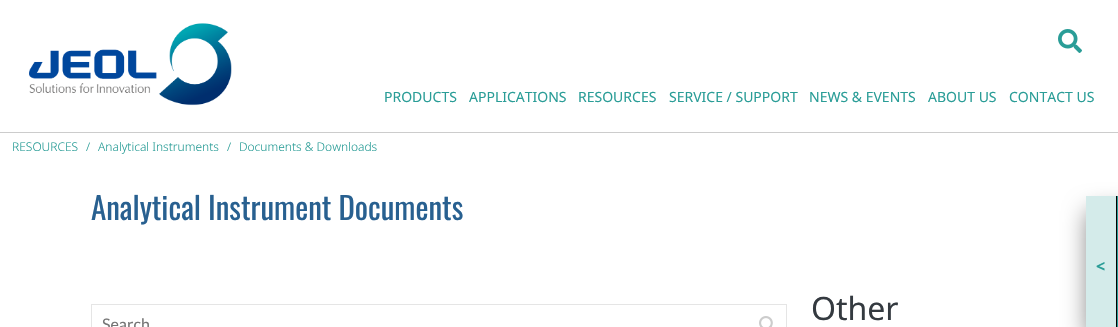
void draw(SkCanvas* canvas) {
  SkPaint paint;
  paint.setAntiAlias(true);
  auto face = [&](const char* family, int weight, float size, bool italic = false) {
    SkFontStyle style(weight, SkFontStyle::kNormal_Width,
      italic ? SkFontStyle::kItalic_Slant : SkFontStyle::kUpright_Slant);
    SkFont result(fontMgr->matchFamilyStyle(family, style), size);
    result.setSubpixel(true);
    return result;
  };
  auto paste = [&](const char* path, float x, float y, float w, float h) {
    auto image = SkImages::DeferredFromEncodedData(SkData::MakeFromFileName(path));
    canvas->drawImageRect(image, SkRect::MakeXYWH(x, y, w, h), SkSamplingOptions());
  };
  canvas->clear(0xffffffff);
  paint.setColor(0xffcccccc);
  canvas->drawRect(SkRect::MakeXYWH(0, 132, 1118, 1), paint);
  paste("img/1.png", 29, 23, 203, 83);
  paste("img/2.png", 1058, 29, 24, 24);
  paint.setColor(0x80000000);
  paint.setMaskFilter(SkMaskFilter::MakeBlur(kNormal_SkBlurStyle, 12.5f));
  canvas->drawRect(SkRect::MakeXYWH(1088, 211, 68, 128), paint);
  paint.setMaskFilter(nullptr);
  {
    const struct { float x, y, w, h; SkColor color; } items[] = {
      {1117, 196, 1, 131, 0xff2a9d97},
      {1086, 196, 30, 131, 0xffd4ebea},
      {1116, 196, 1, 131, 0xff000000},
    };
    for (auto [x, y, w, h, color] : items) {
      paint.setColor(color);
      canvas->drawRect(SkRect::MakeXYWH(x, y, w, h), paint);
    }
  }
  paint.setStroke(true);
  paint.setStrokeWidth(1);
  paint.setColor(0xffe5e5e5);
  canvas->drawRect(SkRect::MakeXYWH(91.5f, 304.5f, 695, 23), paint);
  paste("img/3.png", 759, 316, 14, 11);
  auto f0 = face("Noto Sans", 400, 14);
  paint.setStroke(false);
  paint.setColor(0xff2a9d97);
  {
    const struct { const char* s; float x, y; } items[] = {
      {"PRODUCTS", 384, 102},
      {"APPLICATIONS", 469, 102},
      {"RESOURCES", 578, 102},
      {"SERVICE / SUPPORT", 669, 102},
      {"NEWS & EVENTS", 809, 102},
      {"ABOUT US", 928, 102},
      {"CONTACT US", 1009, 102},
    };
    for (auto [s, x, y] : items) {
      canvas->drawString(s, x, y, f0, paint);
    }
  }
  auto f1 = face("Noto Sans", 300, 12);
  {
    const struct { const char* s; float x, y; } items[] = {
      {"RESOURCES", 12, 151},
      {"/", 86, 151},
      {"Analytical Instruments", 98, 151},
      {"/", 227, 151},
      {"Documents & Downloads", 239, 151},
    };
    for (auto [s, x, y] : items) {
      canvas->drawString(s, x, y, f1, paint);
    }
  }
  auto f2 = face("Oswald", 400, 31);
  paint.setColor(0xff286090);
  canvas->drawString("Analytical Instrument Documents", 91, 220, f2, paint);
  auto f3 = face("Noto Sans", 700, 16);
  paint.setColor(0xff2a9d97);
  canvas->drawString("<", 1096, 272, f3, paint);
  auto f4 = face("Noto Sans", 400, 32);
  paint.setColor(0xff343a40);
  canvas->drawString("Other", 811, 320, f4, paint);
  auto f5 = face("Lato", 400, 16);
  paint.setColor(0xff757575);
  canvas->drawString("Search", 102, 330, f5, paint);
}
